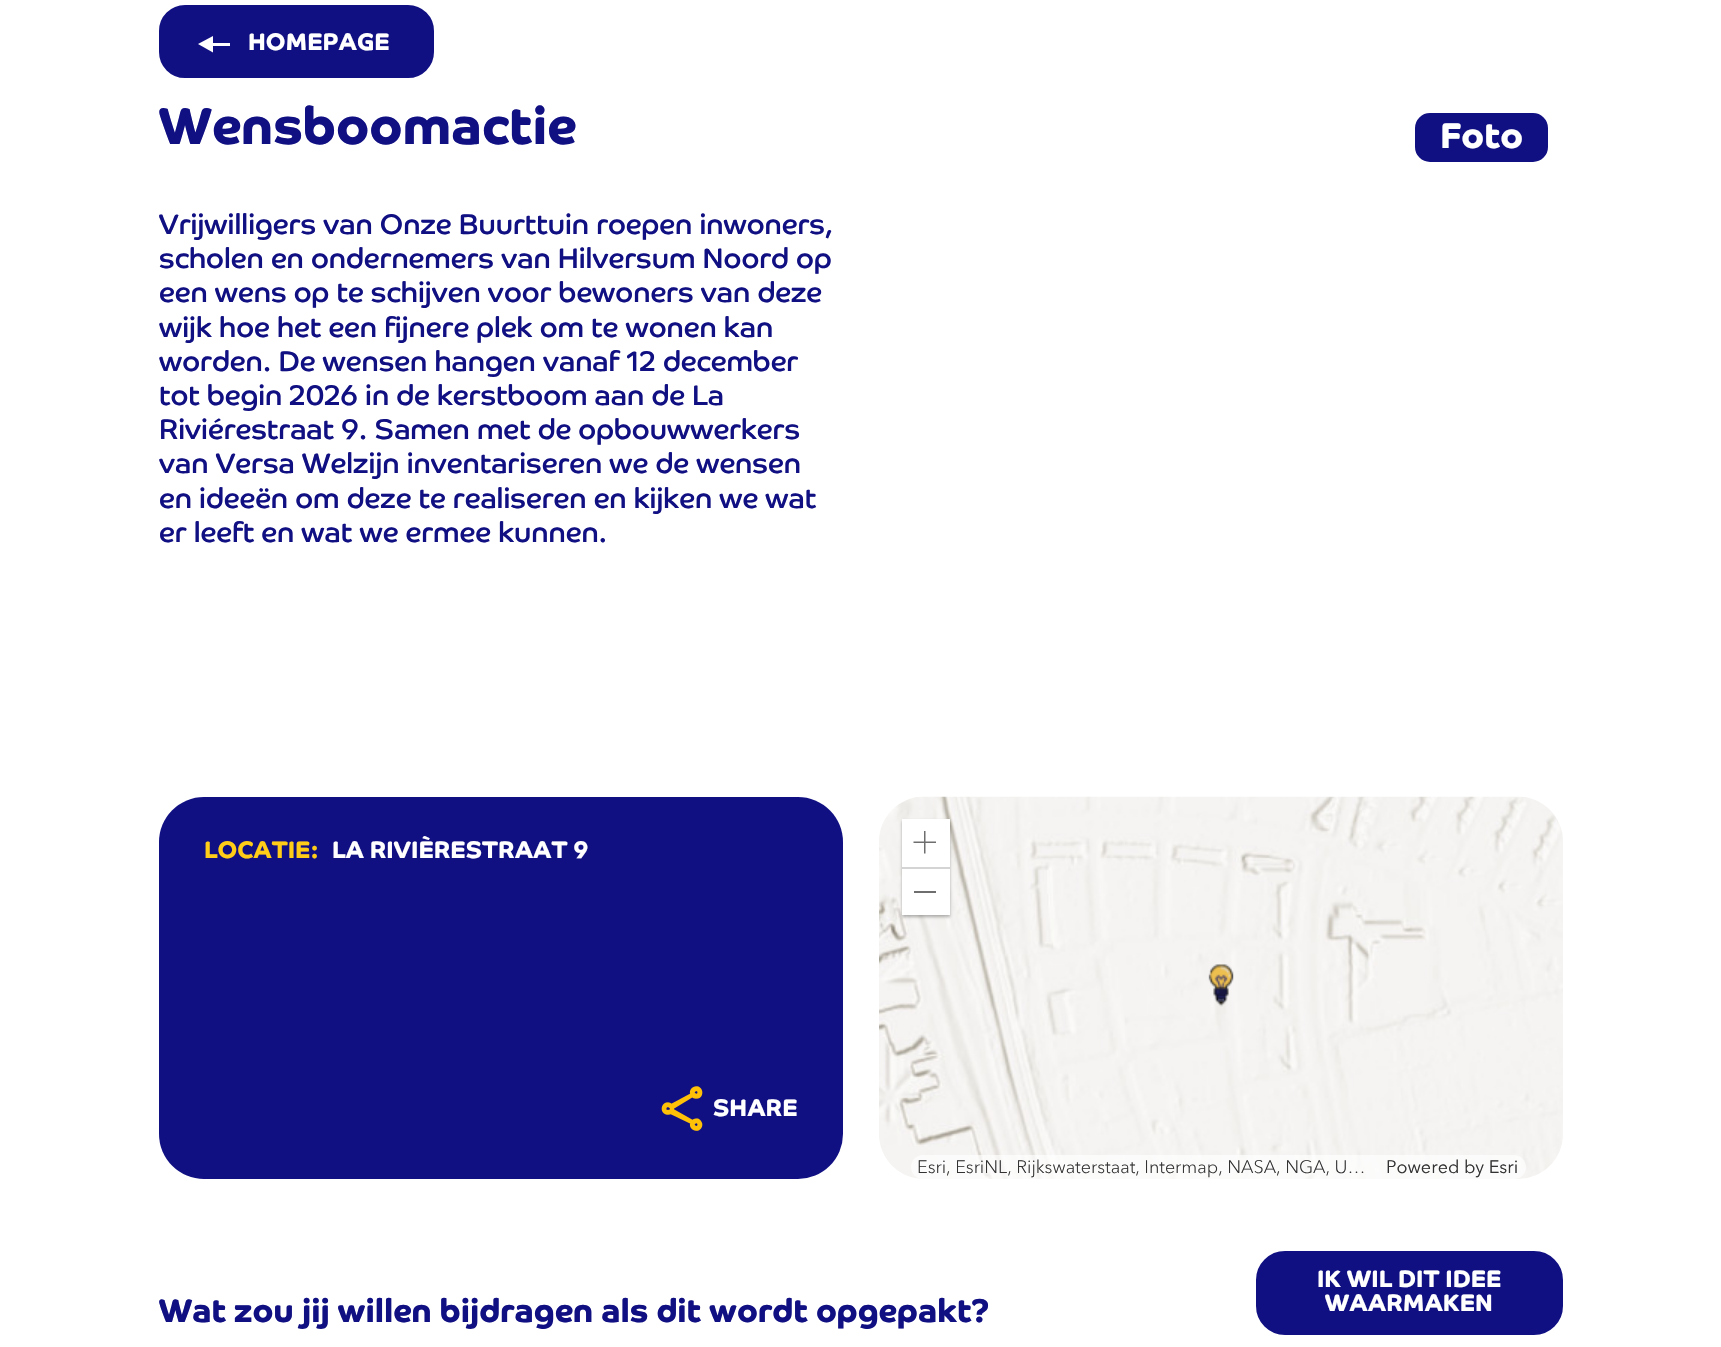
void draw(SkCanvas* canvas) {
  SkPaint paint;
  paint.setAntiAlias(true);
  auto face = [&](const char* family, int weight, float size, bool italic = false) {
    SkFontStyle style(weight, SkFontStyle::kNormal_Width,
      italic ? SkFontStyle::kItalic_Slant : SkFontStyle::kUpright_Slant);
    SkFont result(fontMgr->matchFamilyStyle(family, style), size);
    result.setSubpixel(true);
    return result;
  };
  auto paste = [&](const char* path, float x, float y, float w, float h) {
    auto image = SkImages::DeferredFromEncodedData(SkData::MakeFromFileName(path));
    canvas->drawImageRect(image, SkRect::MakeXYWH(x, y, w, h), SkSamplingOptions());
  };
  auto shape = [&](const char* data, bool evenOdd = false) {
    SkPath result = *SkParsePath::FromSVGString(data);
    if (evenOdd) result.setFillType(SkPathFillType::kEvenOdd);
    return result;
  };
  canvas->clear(0xffffffff);
  paint.setColor(0xff111083);
  canvas->drawRoundRect(SkRect::MakeXYWH(161.5f, 7.5f, 270, 68), 23.5f, 23.5f, paint);
  paint.setStroke(true);
  paint.setStrokeWidth(5);
  canvas->drawRoundRect(SkRect::MakeXYWH(161.5f, 7.5f, 270, 68), 23.5f, 23.5f, paint);
  paint.setStroke(false);
  paint.setColor(0xffffffff);
  canvas->drawPath(shape("M198 44L213 36V52.5Z"), paint);
  canvas->drawRect(SkRect::MakeXYWH(212, 43, 18, 3), paint);
  paint.setColor(0xff111083);
  canvas->drawRoundRect(SkRect::MakeXYWH(1417.5f, 115.5f, 128, 44), 12.5f, 12.5f, paint);
  paint.setStroke(true);
  canvas->drawRoundRect(SkRect::MakeXYWH(1417.5f, 115.5f, 128, 44), 12.5f, 12.5f, paint);
  paint.setStroke(false);
  canvas->drawRoundRect(SkRect::MakeXYWH(159, 797, 684, 382), 45, 45, paint);
  paste("img/1.png", 661, 1086, 42, 45);
  paste("img/2.png", 879, 796, 684, 383);
  paint.setColor(0x4d000000);
  paint.setMaskFilter(SkMaskFilter::MakeBlur(kNormal_SkBlurStyle, 1.5f));
  canvas->drawRect(SkRect::MakeXYWH(902, 821, 48, 96), paint);
  paint.setMaskFilter(nullptr);
  paint.setColor(0xffffffff);
  canvas->drawRect(SkRect::MakeXYWH(902, 819, 48, 96), paint);
  paint.setColor(0xff6e6e6e);
  canvas->drawPath(shape("M924 831H925.5V853.5H924ZM913.5 843V841.5H936V843Z"), paint);
  paint.setColor(0xffd4d4d4);
  canvas->drawRect(SkRect::MakeXYWH(902, 867, 48, 2), paint);
  paint.setColor(0xff6e6e6e);
  canvas->drawRect(SkRect::MakeXYWH(914, 891, 22, 2), paint);
  paint.setColor(0xa6ffffff);
  canvas->drawRoundRect(SkRect::MakeXYWH(911, 1155, 615, 24), 12, 12, paint);
  paint.setColor(0xff111083);
  canvas->drawRoundRect(SkRect::MakeXYWH(1258.5f, 1253.5f, 302, 79), 26.5f, 26.5f, paint);
  paint.setStroke(true);
  canvas->drawRoundRect(SkRect::MakeXYWH(1258.5f, 1253.5f, 302, 79), 26.5f, 26.5f, paint);
  auto f0 = face("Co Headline", 700, 24);
  paint.setStroke(false);
  paint.setColor(0xffffffff);
  canvas->drawString("HOMEPAGE", 248, 50, f0, paint);
  auto f1 = face("Co Headline", 700, 52.5f);
  paint.setColor(0xff111083);
  canvas->drawString("Wensboomactie", 159, 144, f1, paint);
  auto f2 = face("Co Headline", 700, 36);
  paint.setColor(0xffffffff);
  canvas->drawString("Foto", 1440, 148, f2, paint);
  auto f3 = face("Co Headline", 400, 28.5f);
  paint.setColor(0xff111083);
  {
    const struct { const char* s; float x, y; } items[] = {
      {"Vrijwilligers van Onze Buurttuin roepen inwoners,", 159, 234},
      {"scholen en ondernemers van Hilversum Noord op", 159, 268},
      {"een wens op te schijven voor bewoners van deze", 159, 302},
      {"wijk hoe het een fijnere plek om te wonen kan", 159, 337},
      {"worden. De wensen hangen vanaf 12 december", 159, 371},
      {"tot begin 2026 in de kerstboom aan de La", 159, 405},
      {"Riviérestraat 9. Samen met de opbouwwerkers", 159, 439},
      {"van Versa Welzijn inventariseren we de wensen", 159, 473},
      {"en ideeën om deze te realiseren en kijken we wat", 159, 508},
      {"er leeft en wat we ermee kunnen.", 159, 542},
    };
    for (auto [s, x, y] : items) {
      canvas->drawString(s, x, y, f3, paint);
    }
  }
  paint.setColor(0xffffcc17);
  canvas->drawString("LOCATIE:", 204, 858, f0, paint);
  paint.setColor(0xffffffff);
  canvas->drawString("LA RIVIÈRESTRAAT 9", 332, 858, f0, paint);
  canvas->drawString("SHARE", 713, 1116, f0, paint);
  auto f4 = face("Avenir Next", 300, 18);
  paint.setColor(0xff323232);
  canvas->drawString("Esri, EsriNL, Rijkswaterstaat, Intermap, NASA, NGA, U…", 917, 1173, f4, paint);
  auto f5 = face("Avenir Next", 400, 18);
  canvas->drawString("Powered by Esri", 1386, 1173, f5, paint);
  auto f6 = face("Co Headline", 700, 33);
  paint.setColor(0xff111083);
  canvas->drawString("Wat zou jij willen bijdragen als dit wordt opgepakt?", 159, 1322, f6, paint);
  paint.setColor(0xffffffff);
  canvas->drawString("IK WIL DIT IDEE", 1317, 1287, f0, paint);
  canvas->drawString("WAARMAKEN", 1325, 1311, f0, paint);
}
